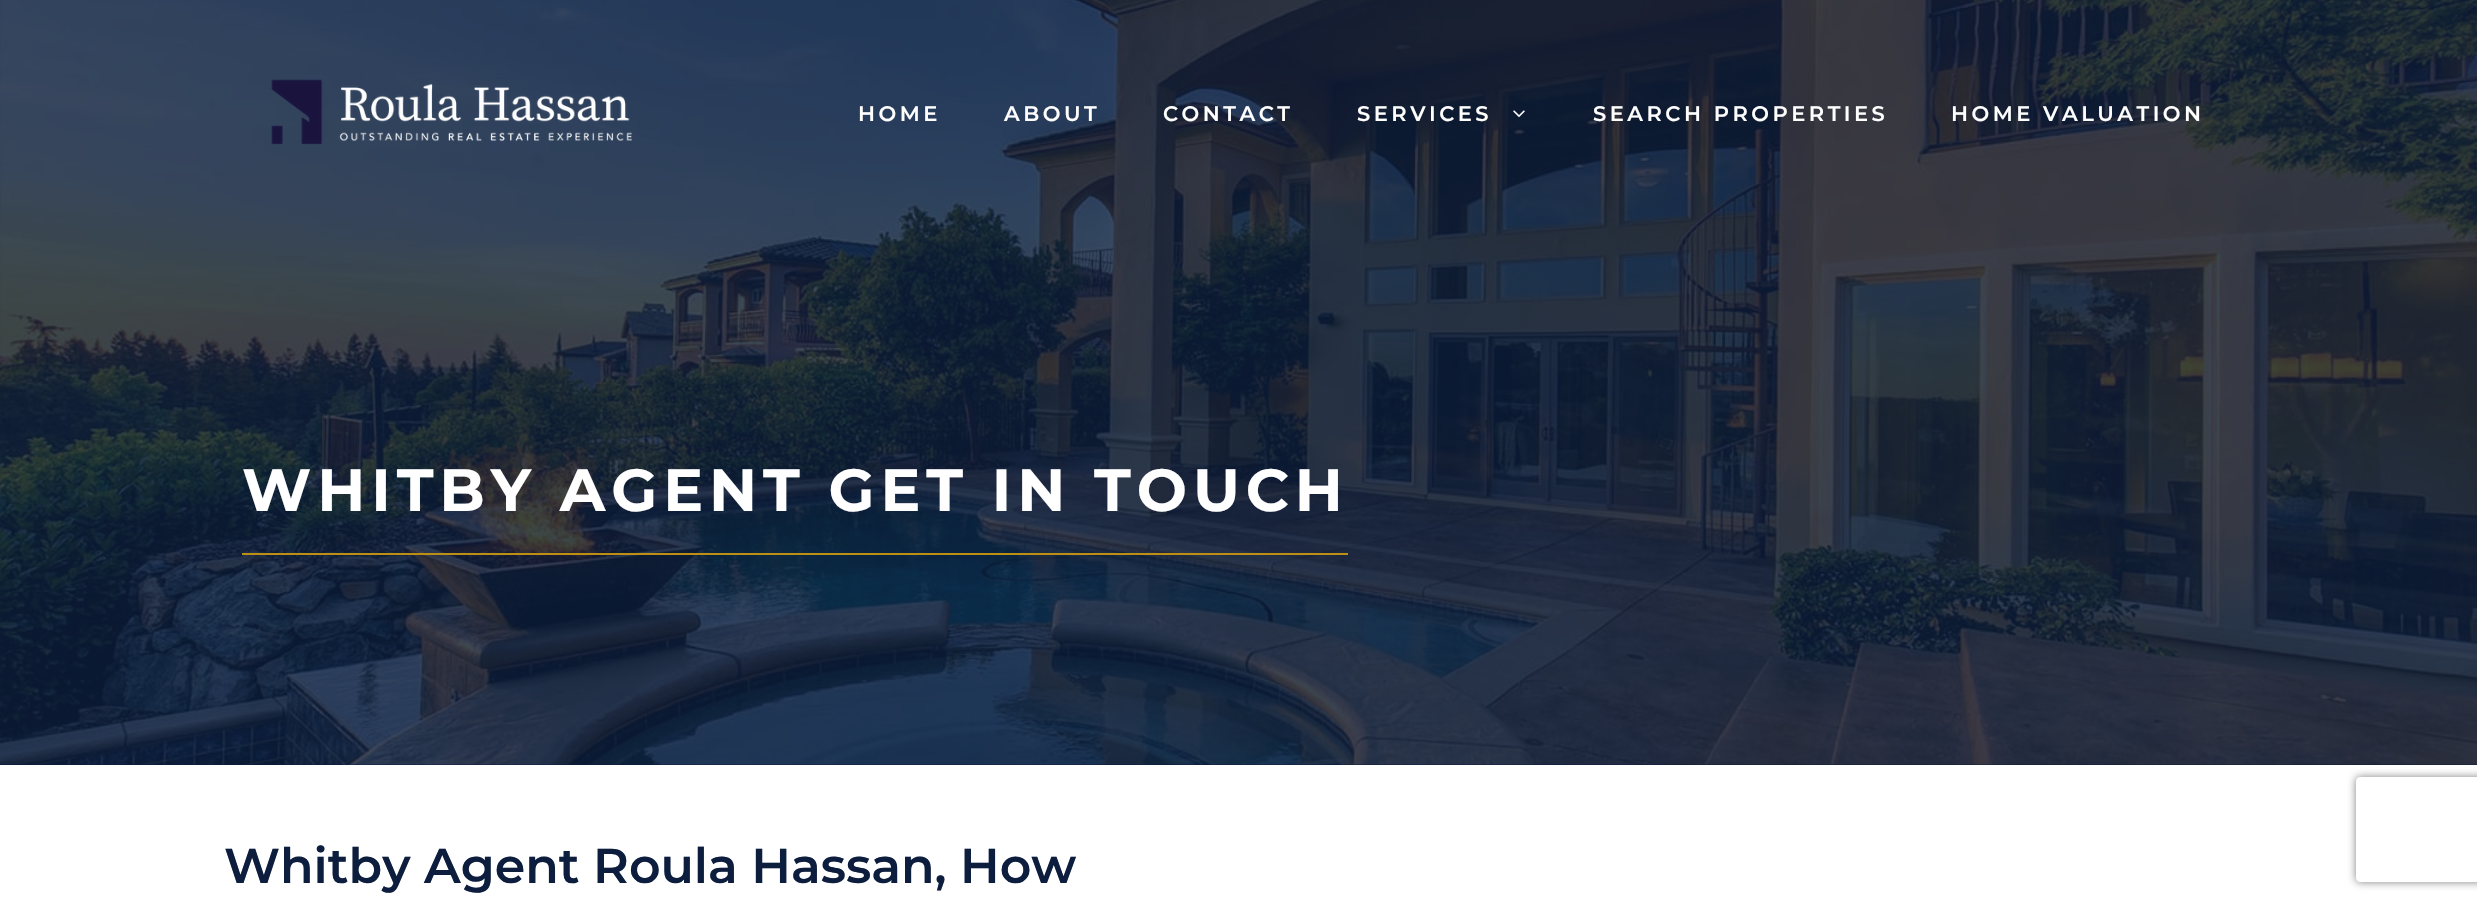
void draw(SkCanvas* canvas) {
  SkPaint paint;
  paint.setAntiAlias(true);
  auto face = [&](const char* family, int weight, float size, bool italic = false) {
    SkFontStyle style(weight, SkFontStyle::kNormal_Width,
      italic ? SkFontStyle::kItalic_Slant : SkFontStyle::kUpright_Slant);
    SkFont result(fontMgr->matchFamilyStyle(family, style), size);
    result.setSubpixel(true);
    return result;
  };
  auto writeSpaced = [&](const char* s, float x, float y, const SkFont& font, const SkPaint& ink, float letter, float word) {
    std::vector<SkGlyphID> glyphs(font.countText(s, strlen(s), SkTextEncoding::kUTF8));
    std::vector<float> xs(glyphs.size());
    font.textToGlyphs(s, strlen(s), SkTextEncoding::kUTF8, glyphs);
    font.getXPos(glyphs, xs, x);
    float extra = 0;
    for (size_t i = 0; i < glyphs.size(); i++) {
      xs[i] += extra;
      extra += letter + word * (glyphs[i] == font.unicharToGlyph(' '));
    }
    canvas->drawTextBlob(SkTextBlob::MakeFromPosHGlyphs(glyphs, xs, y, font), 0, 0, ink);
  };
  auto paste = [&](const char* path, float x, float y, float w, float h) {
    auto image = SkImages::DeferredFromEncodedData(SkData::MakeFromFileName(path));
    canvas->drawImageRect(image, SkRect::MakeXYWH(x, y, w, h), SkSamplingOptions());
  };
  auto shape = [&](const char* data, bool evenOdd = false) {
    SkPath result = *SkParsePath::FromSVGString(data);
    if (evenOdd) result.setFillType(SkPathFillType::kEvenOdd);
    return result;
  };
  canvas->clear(0xffffffff);
  paint.setColor(0xff0c1d3d);
  canvas->drawRect(SkRect::MakeXYWH(0, 0, 2477, 765), paint);
  paste("img/3.png", 0, 0, 2477, 765);
  paste("img/1.png", 271, 79, 361, 66);
  paste("img/2.png", 1513, 110, 12, 8);
  paint.setColor(0xffbd8f13);
  canvas->drawRect(SkRect::MakeXYWH(242, 553, 1106, 2), paint);
  canvas->save();
  canvas->clipPath(shape("M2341 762H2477V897H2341ZM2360 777H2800C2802 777 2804 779 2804 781V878C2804 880 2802 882 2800 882H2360C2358 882 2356 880 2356 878V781C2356 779 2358 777 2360 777Z", true), true);
  paint.setColor(0xff808080);
  paint.setMaskFilter(SkMaskFilter::MakeBlur(kNormal_SkBlurStyle, 4.5f));
  canvas->drawRoundRect(SkRect::MakeXYWH(2356, 777, 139, 105), 4, 4, paint);
  paint.setMaskFilter(nullptr);
  canvas->restore();
  auto f0 = face("Montserrat", 600, 21);
  paint.setColor(0xffffffff);
  {
    const struct { const char* s; float x, y; } items[] = {
      {"HOME", 858, 121},
      {"ABOUT", 1004, 121},
      {"CONTACT", 1163, 121},
      {"SERVICES", 1357, 121},
      {"SEARCH PROPERTIES", 1593, 121},
      {"HOME VALUATION", 1951, 121},
    };
    for (auto [s, x, y] : items) {
      writeSpaced(s, x, y, f0, paint, 3.5f, 0);
    }
  }
  auto f1 = face("Montserrat", 700, 59.5f);
  writeSpaced("WHITBY AGENT GET IN TOUCH", 242, 511, f1, paint, 5.95f, 0);
  auto f2 = face("Montserrat", 600, 49);
  paint.setColor(0xff0c1d3d);
  canvas->drawString("Whitby Agent Roula Hassan, How", 224, 883, f2, paint);
}
